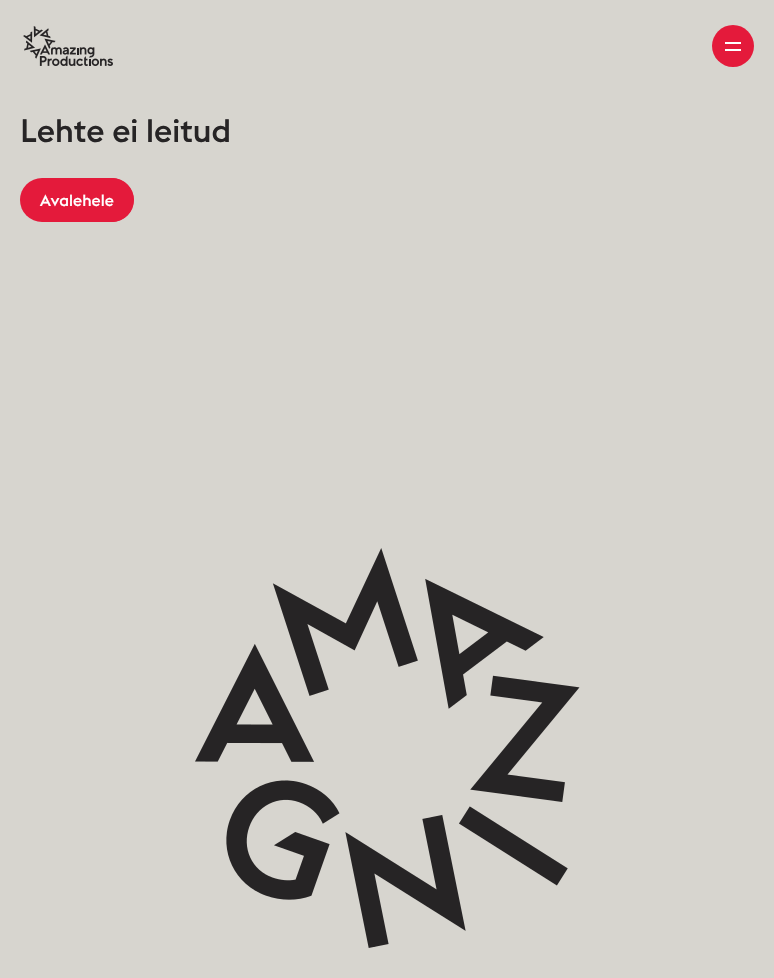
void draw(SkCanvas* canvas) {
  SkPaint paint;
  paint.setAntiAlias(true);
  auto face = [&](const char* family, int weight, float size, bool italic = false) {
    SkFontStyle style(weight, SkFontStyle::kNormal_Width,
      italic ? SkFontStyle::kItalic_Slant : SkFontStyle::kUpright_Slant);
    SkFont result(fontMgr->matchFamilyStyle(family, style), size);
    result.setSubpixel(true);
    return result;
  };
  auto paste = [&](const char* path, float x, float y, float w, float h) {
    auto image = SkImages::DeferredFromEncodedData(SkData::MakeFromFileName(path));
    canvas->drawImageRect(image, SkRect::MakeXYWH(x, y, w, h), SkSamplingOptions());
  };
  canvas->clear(0xffd7d5cf);
  paste("img/1.png", 23, 26, 90, 40);
  paint.setColor(0xffe41a3b);
  canvas->drawCircle(733, 46, 21, paint);
  paint.setColor(0xffffffff);
  canvas->drawRect(SkRect::MakeXYWH(725, 42, 16, 2), paint);
  canvas->drawRect(SkRect::MakeXYWH(725, 49, 16, 2), paint);
  paste("img/2.png", 112, 178, 22, 44);
  paint.setColor(0xffe41a3b);
  canvas->drawRoundRect(SkRect::MakeXYWH(20, 178, 114, 44), 22, 22, paint);
  paste("img/3.png", 195, 548, 385, 400);
  auto f0 = face("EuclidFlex", 500, 32);
  paint.setColor(0xff262425);
  canvas->drawString("Lehte ei leitud", 20, 142, f0, paint);
  auto f1 = face("EuclidFlex", 500, 16);
  paint.setColor(0xffffffff);
  canvas->drawString("Avalehele", 40, 206, f1, paint);
}
